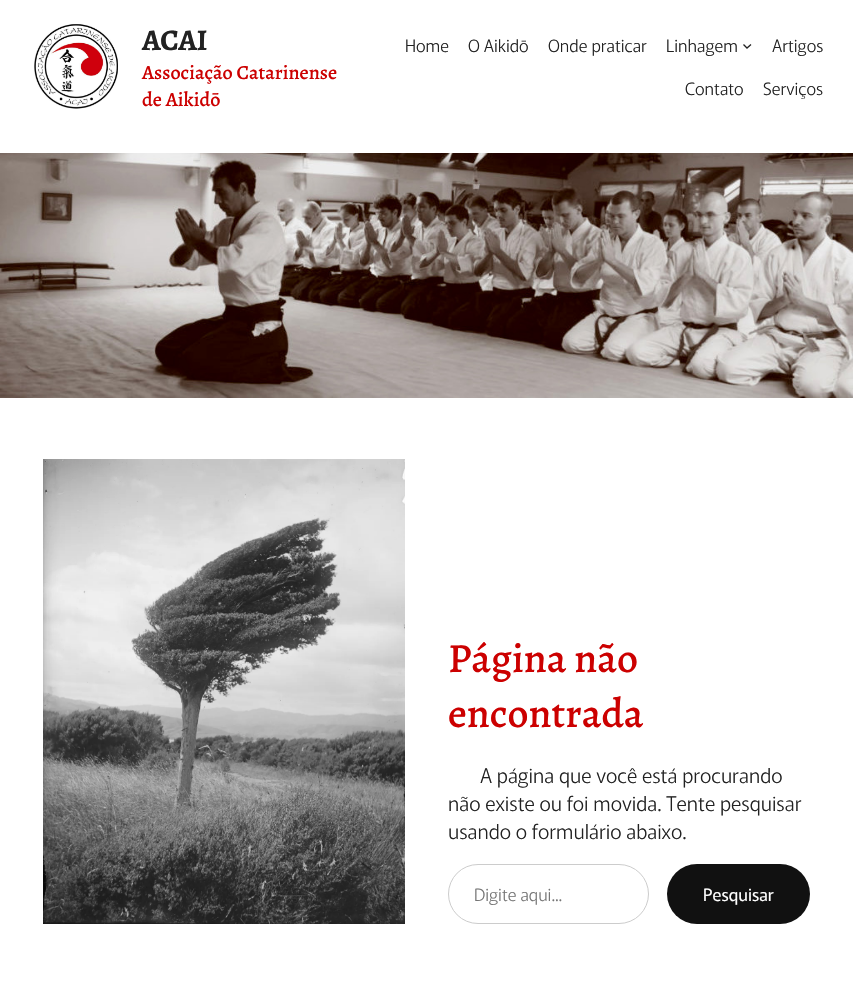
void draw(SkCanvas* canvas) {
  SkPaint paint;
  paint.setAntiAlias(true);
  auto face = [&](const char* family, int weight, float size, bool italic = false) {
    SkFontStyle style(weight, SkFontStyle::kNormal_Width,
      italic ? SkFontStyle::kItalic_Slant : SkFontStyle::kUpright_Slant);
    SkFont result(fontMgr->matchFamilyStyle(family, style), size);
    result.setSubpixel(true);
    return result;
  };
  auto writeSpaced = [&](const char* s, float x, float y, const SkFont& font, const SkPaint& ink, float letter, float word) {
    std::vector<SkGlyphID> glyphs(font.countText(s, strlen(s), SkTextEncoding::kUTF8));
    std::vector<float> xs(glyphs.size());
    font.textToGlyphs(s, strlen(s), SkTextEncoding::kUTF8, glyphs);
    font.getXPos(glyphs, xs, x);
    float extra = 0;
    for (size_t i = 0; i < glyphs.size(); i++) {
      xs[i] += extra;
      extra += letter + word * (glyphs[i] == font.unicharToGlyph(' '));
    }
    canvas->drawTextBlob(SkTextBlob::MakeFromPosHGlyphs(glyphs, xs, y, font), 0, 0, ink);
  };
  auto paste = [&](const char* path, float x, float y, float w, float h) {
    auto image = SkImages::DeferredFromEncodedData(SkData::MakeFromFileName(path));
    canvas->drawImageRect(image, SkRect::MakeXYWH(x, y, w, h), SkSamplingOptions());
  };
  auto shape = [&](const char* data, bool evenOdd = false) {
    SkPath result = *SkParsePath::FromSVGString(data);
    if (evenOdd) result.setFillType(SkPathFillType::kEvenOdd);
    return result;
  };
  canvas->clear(0xffffffff);
  paste("img/1.png", 34, 24, 84, 85);
  paint.setStroke(true);
  paint.setStrokeWidth(1.3f);
  paint.setColor(0xff222222);
  canvas->drawPath(shape("M743.5 44.5L747 48L751 44.5"), paint);
  paste("img/2.png", 0, 153, 853, 245);
  paste("img/3.png", 43, 459, 362, 465);
  paint.setStrokeWidth(1);
  paint.setColor(0xffcccccc);
  canvas->drawRoundRect(SkRect::MakeXYWH(448.5f, 864.5f, 200, 59), 29.5f, 29.5f, paint);
  paint.setStroke(false);
  paint.setColor(0xff111111);
  canvas->drawRoundRect(SkRect::MakeXYWH(667, 864, 143, 60), 30, 30, paint);
  auto f0 = face("Alegreya", 700, 30);
  paint.setColor(0xff222222);
  writeSpaced("ACAI", 142, 50, f0, paint, -0.5f, 0);
  auto f1 = face("Alegreya", 500, 20.1f);
  paint.setColor(0xffcc0000);
  canvas->drawString("Associação Catarinense", 142, 79, f1, paint);
  canvas->drawString("de Aikidō", 142, 106, f1, paint);
  auto f2 = face("Murecho", 300, 17);
  paint.setColor(0xff222222);
  {
    const struct { const char* s; float x, y; } items[] = {
      {"Home", 405, 52},
      {"O Aikidō", 468, 52},
      {"Onde praticar", 548, 52},
      {"Linhagem", 666, 52},
      {"Artigos", 772, 52},
      {"Contato", 685, 95},
      {"Serviços", 763, 95},
    };
    for (auto [s, x, y] : items) {
      canvas->drawString(s, x, y, f2, paint);
    }
  }
  auto f3 = face("Alegreya", 500, 41.5f);
  paint.setColor(0xffcc0000);
  canvas->drawString("Página não", 448, 672, f3, paint);
  canvas->drawString("encontrada", 448, 727, f3, paint);
  auto f4 = face("Murecho", 300, 20.1f);
  paint.setColor(0xff222222);
  {
    const struct { const char* s; float x, y; } items[] = {
      {"A página que você está procurando", 480, 783},
      {"não existe ou foi movida. Tente pesquisar", 448, 811},
      {"usando o formulário abaixo.", 448, 839},
    };
    for (auto [s, x, y] : items) {
      canvas->drawString(s, x, y, f4, paint);
    }
  }
  paint.setColor(0xff757575);
  canvas->drawString("Digite aqui...", 474, 901, f2, paint);
  auto f5 = face("Murecho", 400, 17);
  paint.setColor(0xffffffff);
  canvas->drawString("Pesquisar", 703, 901, f5, paint);
}
